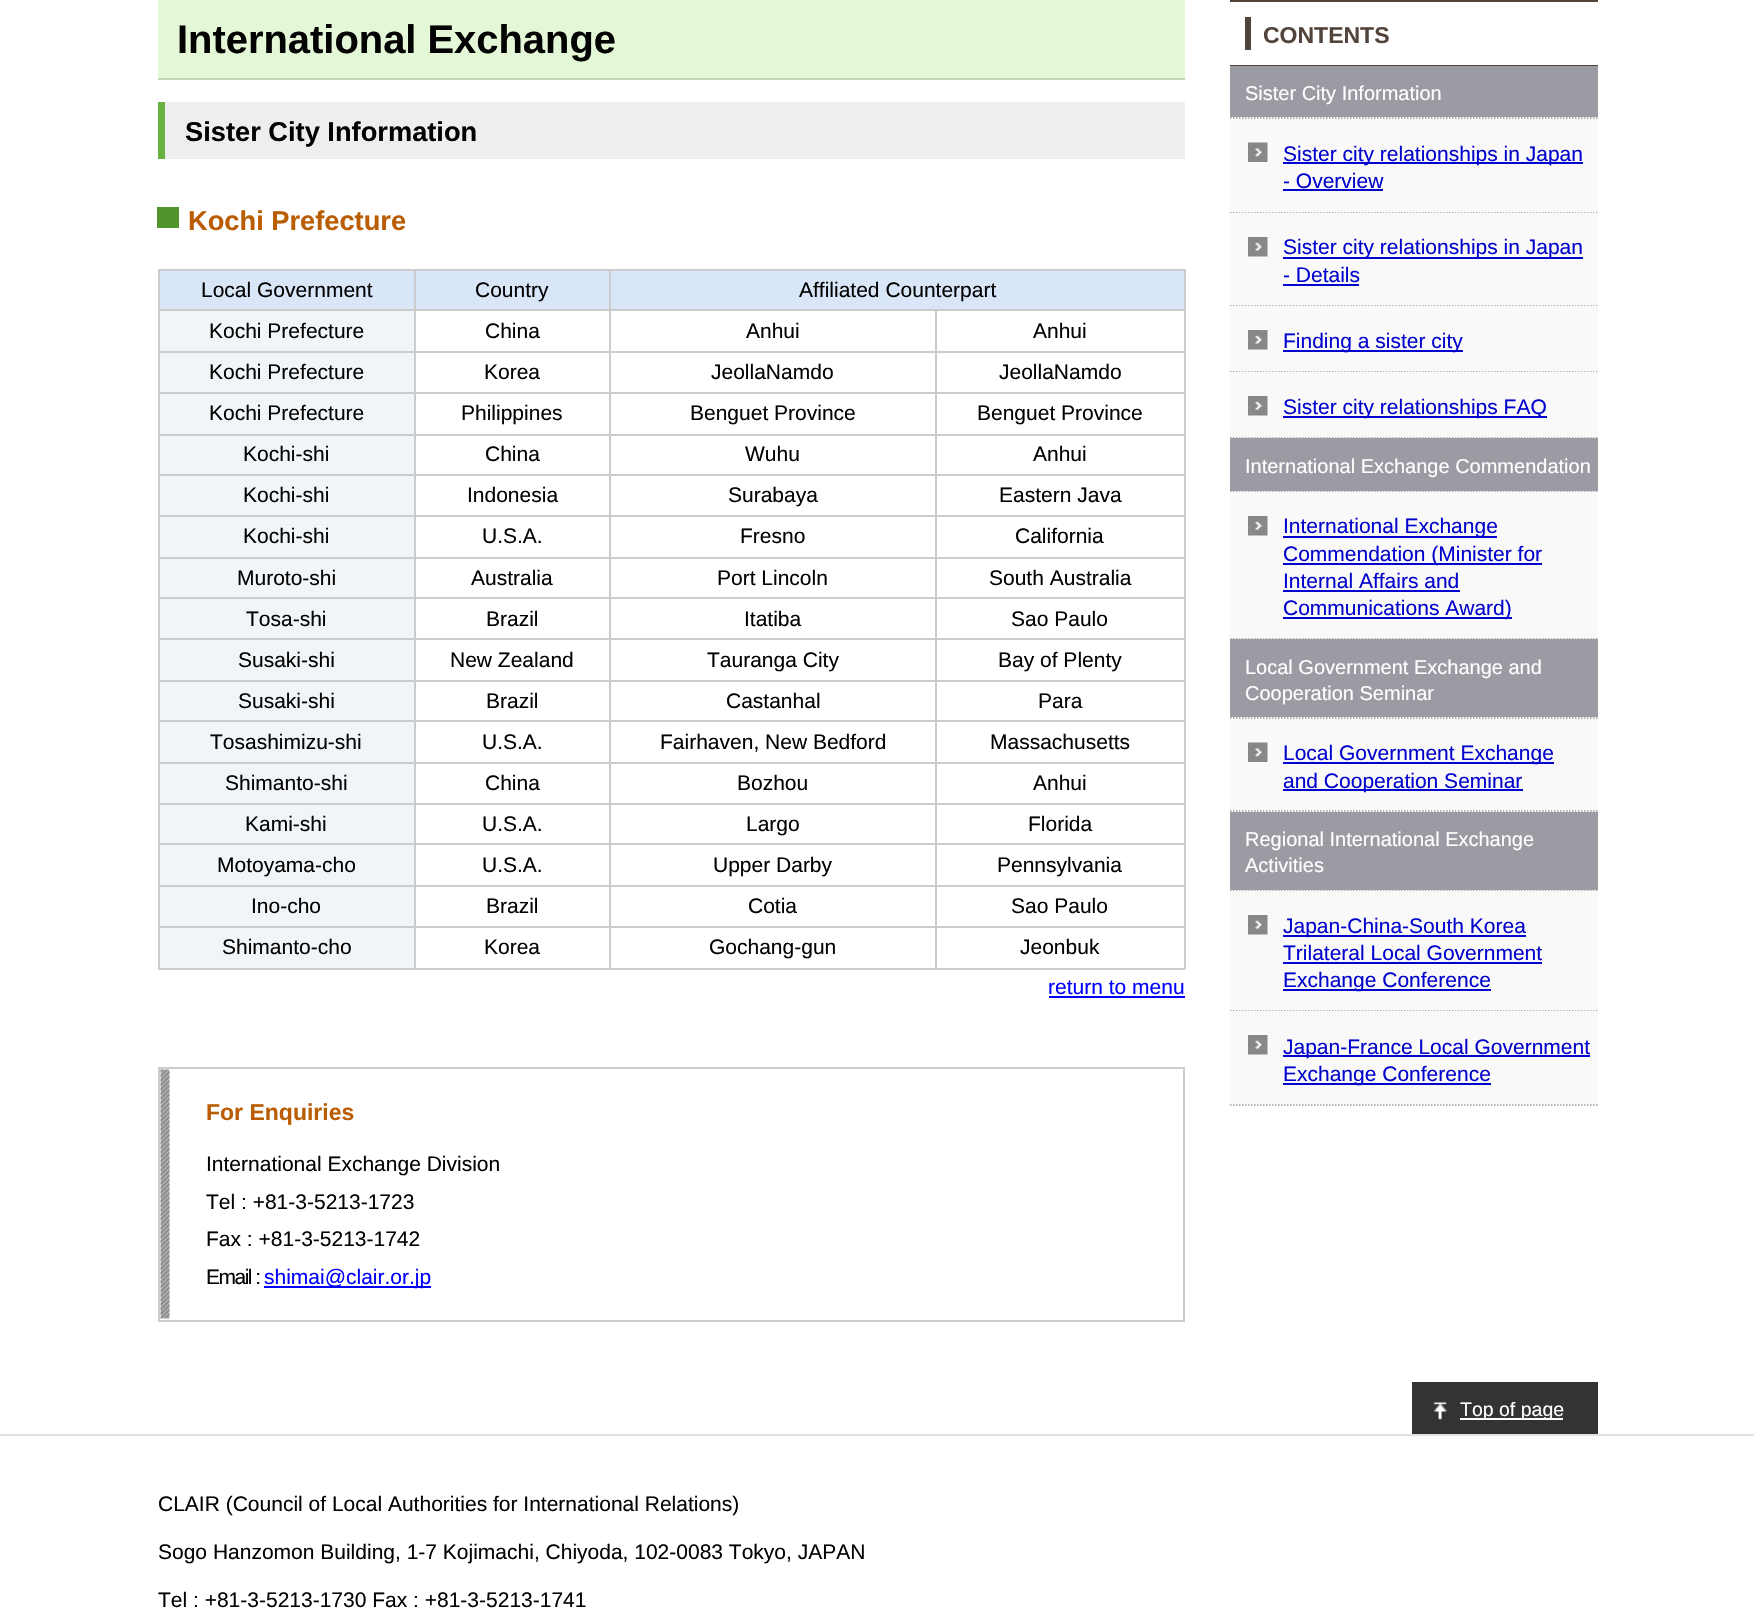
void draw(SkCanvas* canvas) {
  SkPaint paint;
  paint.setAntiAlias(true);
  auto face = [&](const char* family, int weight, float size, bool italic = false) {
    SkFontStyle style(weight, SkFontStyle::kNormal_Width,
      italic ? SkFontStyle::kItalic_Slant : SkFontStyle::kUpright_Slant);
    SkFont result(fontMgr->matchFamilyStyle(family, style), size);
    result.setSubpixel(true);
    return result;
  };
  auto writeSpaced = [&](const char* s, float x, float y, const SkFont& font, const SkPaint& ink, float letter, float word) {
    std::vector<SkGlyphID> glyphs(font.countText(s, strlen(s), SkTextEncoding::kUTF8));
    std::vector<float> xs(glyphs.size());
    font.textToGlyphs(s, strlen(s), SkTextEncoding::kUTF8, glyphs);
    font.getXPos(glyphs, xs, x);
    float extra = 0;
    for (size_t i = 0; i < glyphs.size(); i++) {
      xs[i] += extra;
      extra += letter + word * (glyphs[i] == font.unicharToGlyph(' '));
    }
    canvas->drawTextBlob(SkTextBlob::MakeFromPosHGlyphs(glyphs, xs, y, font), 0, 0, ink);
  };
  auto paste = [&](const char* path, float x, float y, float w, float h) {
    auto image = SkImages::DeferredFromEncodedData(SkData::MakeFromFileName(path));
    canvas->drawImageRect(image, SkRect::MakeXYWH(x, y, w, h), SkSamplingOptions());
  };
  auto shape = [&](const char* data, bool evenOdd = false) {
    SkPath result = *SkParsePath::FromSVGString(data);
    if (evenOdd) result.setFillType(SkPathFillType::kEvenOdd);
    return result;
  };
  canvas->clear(0xffffffff);
  {
    const struct { float x, y, w, h; SkColor color; } items[] = {
      {158, 0, 1027, 78, 0xffe4f8d8},
      {158, 78, 1027, 2, 0xffc1d5b5},
      {165, 102, 1020, 57, 0xffeeeeee},
      {158, 102, 7, 57, 0xff69b141},
      {157, 207, 22, 21, 0xff51942b},
      {160, 271, 254, 38, 0xffd9e6f7},
      {609, 269, 576, 2, 0xffcccccc},
      {935, 309, 250, 2, 0xffcccccc},
      {935, 351, 250, 2, 0xffcccccc},
      {935, 392, 250, 2, 0xffcccccc},
      {935, 434, 250, 2, 0xffcccccc},
      {935, 474, 250, 2, 0xffcccccc},
      {935, 515, 250, 2, 0xffcccccc},
      {935, 557, 250, 2, 0xffcccccc},
      {935, 597, 250, 2, 0xffcccccc},
      {935, 638, 250, 2, 0xffcccccc},
      {935, 680, 250, 2, 0xffcccccc},
      {935, 720, 250, 2, 0xffcccccc},
      {935, 762, 250, 2, 0xffcccccc},
      {935, 803, 250, 2, 0xffcccccc},
      {935, 843, 250, 2, 0xffcccccc},
      {935, 885, 250, 2, 0xffcccccc},
      {935, 926, 250, 2, 0xffcccccc},
      {1184, 926, 2, 43, 0xffcccccc},
      {935, 968, 250, 2, 0xffcccccc},
      {935, 926, 2, 43, 0xffcccccc},
      {609, 926, 327, 2, 0xffcccccc},
      {935, 885, 2, 42, 0xffcccccc},
      {609, 885, 327, 2, 0xffcccccc},
      {935, 843, 2, 44, 0xffcccccc},
      {609, 843, 327, 2, 0xffcccccc},
      {935, 803, 2, 42, 0xffcccccc},
      {609, 803, 327, 2, 0xffcccccc},
      {935, 762, 2, 42, 0xffcccccc},
      {609, 762, 327, 2, 0xffcccccc},
      {935, 720, 2, 44, 0xffcccccc},
      {609, 720, 327, 2, 0xffcccccc},
      {935, 680, 2, 42, 0xffcccccc},
      {609, 680, 327, 2, 0xffcccccc},
      {935, 638, 2, 43, 0xffcccccc},
      {609, 638, 327, 2, 0xffcccccc},
      {935, 597, 2, 42, 0xffcccccc},
      {609, 597, 327, 2, 0xffcccccc},
      {935, 557, 2, 42, 0xffcccccc},
      {609, 557, 327, 2, 0xffcccccc},
      {935, 515, 2, 43, 0xffcccccc},
      {609, 515, 327, 2, 0xffcccccc},
      {935, 474, 2, 42, 0xffcccccc},
      {609, 474, 327, 2, 0xffcccccc},
      {935, 434, 2, 42, 0xffcccccc},
      {609, 434, 327, 2, 0xffcccccc},
      {935, 392, 2, 43, 0xffcccccc},
      {609, 392, 327, 2, 0xffcccccc},
      {935, 351, 2, 42, 0xffcccccc},
      {609, 351, 327, 2, 0xffcccccc},
      {935, 309, 2, 44, 0xffcccccc},
      {609, 309, 327, 2, 0xffcccccc},
      {609, 968, 327, 2, 0xffcccccc},
      {609, 926, 2, 43, 0xffcccccc},
      {414, 926, 197, 2, 0xffcccccc},
      {609, 885, 2, 42, 0xffcccccc},
      {414, 885, 197, 2, 0xffcccccc},
      {609, 843, 2, 44, 0xffcccccc},
      {414, 843, 197, 2, 0xffcccccc},
      {609, 803, 2, 42, 0xffcccccc},
      {414, 803, 197, 2, 0xffcccccc},
      {609, 762, 2, 42, 0xffcccccc},
      {414, 762, 197, 2, 0xffcccccc},
      {609, 720, 2, 44, 0xffcccccc},
      {414, 720, 197, 2, 0xffcccccc},
      {609, 680, 2, 42, 0xffcccccc},
      {414, 680, 197, 2, 0xffcccccc},
      {609, 638, 2, 43, 0xffcccccc},
      {414, 638, 197, 2, 0xffcccccc},
      {609, 597, 2, 42, 0xffcccccc},
      {414, 597, 197, 2, 0xffcccccc},
      {609, 557, 2, 42, 0xffcccccc},
      {414, 557, 197, 2, 0xffcccccc},
      {609, 515, 2, 43, 0xffcccccc},
      {414, 515, 197, 2, 0xffcccccc},
      {609, 474, 2, 42, 0xffcccccc},
      {414, 474, 197, 2, 0xffcccccc},
      {609, 434, 2, 42, 0xffcccccc},
      {414, 434, 197, 2, 0xffcccccc},
      {609, 392, 2, 43, 0xffcccccc},
      {414, 392, 197, 2, 0xffcccccc},
      {609, 351, 2, 42, 0xffcccccc},
      {414, 351, 197, 2, 0xffcccccc},
      {609, 309, 2, 44, 0xffcccccc},
      {414, 309, 197, 2, 0xffcccccc},
      {609, 269, 2, 42, 0xffcccccc},
      {414, 269, 197, 2, 0xffcccccc},
      {414, 968, 197, 2, 0xffcccccc},
      {414, 926, 2, 43, 0xffcccccc},
      {158, 926, 258, 2, 0xffcccccc},
      {414, 885, 2, 42, 0xffcccccc},
      {158, 885, 258, 2, 0xffcccccc},
      {414, 843, 2, 44, 0xffcccccc},
      {158, 843, 258, 2, 0xffcccccc},
      {414, 803, 2, 42, 0xffcccccc},
      {158, 803, 258, 2, 0xffcccccc},
      {414, 762, 2, 42, 0xffcccccc},
      {158, 762, 258, 2, 0xffcccccc},
      {414, 720, 2, 44, 0xffcccccc},
      {158, 720, 258, 2, 0xffcccccc},
      {414, 680, 2, 42, 0xffcccccc},
      {158, 680, 258, 2, 0xffcccccc},
      {414, 638, 2, 43, 0xffcccccc},
      {158, 638, 258, 2, 0xffcccccc},
      {414, 597, 2, 42, 0xffcccccc},
      {158, 597, 258, 2, 0xffcccccc},
      {414, 557, 2, 42, 0xffcccccc},
      {158, 557, 258, 2, 0xffcccccc},
      {414, 515, 2, 43, 0xffcccccc},
      {158, 515, 258, 2, 0xffcccccc},
      {414, 474, 2, 42, 0xffcccccc},
      {158, 474, 258, 2, 0xffcccccc},
      {414, 434, 2, 42, 0xffcccccc},
      {158, 434, 258, 2, 0xffcccccc},
      {414, 392, 2, 43, 0xffcccccc},
      {158, 392, 258, 2, 0xffcccccc},
      {414, 351, 2, 42, 0xffcccccc},
      {158, 351, 258, 2, 0xffcccccc},
      {414, 309, 2, 44, 0xffcccccc},
      {158, 309, 258, 2, 0xffcccccc},
      {414, 269, 2, 42, 0xffcccccc},
      {158, 269, 258, 2, 0xffcccccc},
      {158, 968, 258, 2, 0xffcccccc},
      {158, 926, 2, 43, 0xffcccccc},
      {158, 885, 2, 42, 0xffcccccc},
      {158, 843, 2, 44, 0xffcccccc},
      {158, 803, 2, 42, 0xffcccccc},
      {158, 762, 2, 42, 0xffcccccc},
      {158, 720, 2, 44, 0xffcccccc},
      {158, 680, 2, 42, 0xffcccccc},
      {158, 638, 2, 43, 0xffcccccc},
      {158, 597, 2, 42, 0xffcccccc},
      {158, 557, 2, 42, 0xffcccccc},
      {158, 515, 2, 43, 0xffcccccc},
      {158, 474, 2, 42, 0xffcccccc},
      {158, 434, 2, 42, 0xffcccccc},
      {158, 392, 2, 43, 0xffcccccc},
      {158, 351, 2, 42, 0xffcccccc},
      {158, 309, 2, 44, 0xffcccccc},
      {158, 269, 2, 42, 0xffcccccc},
      {416, 271, 193, 38, 0xffd9e6f7},
      {611, 271, 573, 38, 0xffd9e6f7},
      {1184, 885, 2, 42, 0xffcccccc},
      {1184, 843, 2, 44, 0xffcccccc},
      {1184, 803, 2, 42, 0xffcccccc},
      {1184, 762, 2, 42, 0xffcccccc},
      {1184, 720, 2, 44, 0xffcccccc},
      {1184, 680, 2, 42, 0xffcccccc},
      {1184, 638, 2, 43, 0xffcccccc},
      {1184, 597, 2, 42, 0xffcccccc},
      {1184, 557, 2, 42, 0xffcccccc},
      {1184, 515, 2, 43, 0xffcccccc},
      {1184, 474, 2, 42, 0xffcccccc},
      {1184, 434, 2, 42, 0xffcccccc},
      {1184, 392, 2, 43, 0xffcccccc},
      {1184, 351, 2, 42, 0xffcccccc},
      {1184, 309, 2, 44, 0xffcccccc},
      {1184, 269, 2, 42, 0xffcccccc},
      {160, 311, 254, 40, 0xfff2f5f8},
      {160, 353, 254, 39, 0xfff2f5f8},
      {160, 394, 254, 40, 0xfff2f5f8},
      {160, 436, 254, 38, 0xfff2f5f8},
      {160, 476, 254, 39, 0xfff2f5f8},
      {160, 517, 254, 40, 0xfff2f5f8},
      {160, 559, 254, 38, 0xfff2f5f8},
      {160, 599, 254, 39, 0xfff2f5f8},
      {160, 640, 254, 40, 0xfff2f5f8},
      {160, 682, 254, 38, 0xfff2f5f8},
      {160, 722, 254, 40, 0xfff2f5f8},
      {160, 764, 254, 39, 0xfff2f5f8},
      {160, 805, 254, 38, 0xfff2f5f8},
      {160, 845, 254, 40, 0xfff2f5f8},
      {160, 887, 254, 39, 0xfff2f5f8},
      {160, 928, 254, 40, 0xfff2f5f8},
      {1049, 996, 136, 2, 0xff0000ff},
    };
    for (auto [x, y, w, h, color] : items) {
      paint.setColor(color);
      canvas->drawRect(SkRect::MakeXYWH(x, y, w, h), paint);
    }
  }
  paint.setStroke(true);
  paint.setStrokeWidth(2);
  paint.setColor(0xffcccccc);
  canvas->drawRect(SkRect::MakeXYWH(159, 1068, 1025, 253), paint);
  paste("img/1.png", 160, 1069, 10, 250);
  paint.setStroke(false);
  {
    const struct { float x, y, w, h; SkColor color; } items[] = {
      {264, 1286, 167, 2, 0xff0000ff},
      {1230, 0, 368, 2, 0xff53443b},
      {1230, 65, 368, 1, 0xff53443b},
      {1245, 17, 6, 33, 0xff53443b},
    };
    for (auto [x, y, w, h, color] : items) {
      paint.setColor(color);
      canvas->drawRect(SkRect::MakeXYWH(x, y, w, h), paint);
    }
  }
  paint.setStroke(true);
  paint.setStrokeWidth(1.5f);
  paint.setColor(0xff999999);
  paint.setPathEffect(SkDashPathEffect::Make({{1.5f, 1.5f}}, 0));
  canvas->drawPath(shape("M1230 118H1597.5"), paint);
  paint.setPathEffect(nullptr);
  paint.setStroke(false);
  paint.setColor(0xff9b9ba3);
  canvas->drawRect(SkRect::MakeXYWH(1230, 66, 368, 51), paint);
  paint.setStroke(true);
  paint.setColor(0xff999999);
  paint.setPathEffect(SkDashPathEffect::Make({{1.5f, 1.5f}}, 0));
  canvas->drawPath(shape("M1230 212H1597.5"), paint);
  paint.setPathEffect(nullptr);
  paint.setStroke(false);
  paint.setColor(0xfff9f9f9);
  canvas->drawRect(SkRect::MakeXYWH(1230, 119, 368, 93), paint);
  paste("img/2.png", 1248, 142, 20, 20);
  paint.setColor(0xff0203cc);
  canvas->drawRect(SkRect::MakeXYWH(1283, 162, 300, 2), paint);
  canvas->drawRect(SkRect::MakeXYWH(1283, 189, 100, 2), paint);
  paint.setStroke(true);
  paint.setColor(0xff999999);
  paint.setPathEffect(SkDashPathEffect::Make({{1.5f, 1.5f}}, 0));
  canvas->drawPath(shape("M1230 305H1597.5"), paint);
  paint.setPathEffect(nullptr);
  paint.setStroke(false);
  paint.setColor(0xfff9f9f9);
  canvas->drawRect(SkRect::MakeXYWH(1230, 213, 368, 92), paint);
  paste("img/3.png", 1248, 237, 20, 20);
  paint.setColor(0xff0203cc);
  canvas->drawRect(SkRect::MakeXYWH(1283, 257, 300, 2), paint);
  canvas->drawRect(SkRect::MakeXYWH(1283, 284, 76, 2), paint);
  paint.setStroke(true);
  paint.setColor(0xff999999);
  paint.setPathEffect(SkDashPathEffect::Make({{1.5f, 1.5f}}, 0));
  canvas->drawPath(shape("M1230 371H1597.5"), paint);
  paint.setPathEffect(nullptr);
  paint.setStroke(false);
  paint.setColor(0xfff9f9f9);
  canvas->drawRect(SkRect::MakeXYWH(1230, 306, 368, 65), paint);
  paste("img/3.png", 1248, 330, 20, 20);
  paint.setColor(0xff0203cc);
  canvas->drawRect(SkRect::MakeXYWH(1283, 350, 180, 2), paint);
  paint.setStroke(true);
  paint.setColor(0xff999999);
  paint.setPathEffect(SkDashPathEffect::Make({{1.5f, 1.5f}}, 0));
  canvas->drawPath(shape("M1230 437H1597.5"), paint);
  paint.setPathEffect(nullptr);
  paint.setStroke(false);
  paint.setColor(0xfff9f9f9);
  canvas->drawRect(SkRect::MakeXYWH(1230, 372, 368, 65), paint);
  paste("img/3.png", 1248, 396, 20, 20);
  paint.setColor(0xff0203cc);
  canvas->drawRect(SkRect::MakeXYWH(1283, 416, 264, 2), paint);
  paint.setStroke(true);
  paint.setColor(0xff999999);
  paint.setPathEffect(SkDashPathEffect::Make({{1.5f, 1.5f}}, 0));
  canvas->drawPath(shape("M1230 491H1597.5"), paint);
  paint.setPathEffect(nullptr);
  paint.setStroke(false);
  paint.setColor(0xff9b9ba3);
  canvas->drawRect(SkRect::MakeXYWH(1230, 438, 368, 53), paint);
  paint.setStroke(true);
  paint.setColor(0xff999999);
  paint.setPathEffect(SkDashPathEffect::Make({{1.5f, 1.5f}}, 0));
  canvas->drawPath(shape("M1230 638H1597.5"), paint);
  paint.setPathEffect(nullptr);
  paint.setStroke(false);
  paint.setColor(0xfff9f9f9);
  canvas->drawRect(SkRect::MakeXYWH(1230, 492, 368, 146), paint);
  paste("img/3.png", 1248, 516, 20, 20);
  {
    const struct { float x, y, w, h; SkColor color; } items[] = {
      {1283, 536, 214, 2, 0xff0203cc},
      {1283, 563, 259, 2, 0xff0203cc},
      {1283, 590, 177, 2, 0xff0203cc},
      {1283, 617, 229, 2, 0xff0203cc},
    };
    for (auto [x, y, w, h, color] : items) {
      paint.setColor(color);
      canvas->drawRect(SkRect::MakeXYWH(x, y, w, h), paint);
    }
  }
  paint.setStroke(true);
  paint.setColor(0xff999999);
  paint.setPathEffect(SkDashPathEffect::Make({{1.5f, 1.5f}}, 0));
  canvas->drawPath(shape("M1230 718H1597.5"), paint);
  paint.setPathEffect(nullptr);
  paint.setStroke(false);
  paint.setColor(0xff9b9ba3);
  canvas->drawRect(SkRect::MakeXYWH(1230, 639, 368, 78), paint);
  paint.setStroke(true);
  paint.setColor(0xff999999);
  paint.setPathEffect(SkDashPathEffect::Make({{1.5f, 1.5f}}, 0));
  canvas->drawPath(shape("M1230 811H1597.5"), paint);
  paint.setPathEffect(nullptr);
  paint.setStroke(false);
  paint.setColor(0xfff9f9f9);
  canvas->drawRect(SkRect::MakeXYWH(1230, 719, 368, 91), paint);
  paste("img/2.png", 1248, 742, 20, 20);
  paint.setColor(0xff0203cc);
  canvas->drawRect(SkRect::MakeXYWH(1283, 762, 271, 2), paint);
  canvas->drawRect(SkRect::MakeXYWH(1283, 789, 240, 2), paint);
  paint.setStroke(true);
  paint.setColor(0xff999999);
  paint.setPathEffect(SkDashPathEffect::Make({{1.5f, 1.5f}}, 0));
  canvas->drawPath(shape("M1230 890H1597.5"), paint);
  paint.setPathEffect(nullptr);
  paint.setStroke(false);
  paint.setColor(0xff9b9ba3);
  canvas->drawRect(SkRect::MakeXYWH(1230, 812, 368, 78), paint);
  paint.setStroke(true);
  paint.setColor(0xff999999);
  paint.setPathEffect(SkDashPathEffect::Make({{1.5f, 1.5f}}, 0));
  canvas->drawPath(shape("M1230 1010H1597.5"), paint);
  paint.setPathEffect(nullptr);
  paint.setStroke(false);
  paint.setColor(0xfff9f9f9);
  canvas->drawRect(SkRect::MakeXYWH(1230, 891, 368, 119), paint);
  paste("img/3.png", 1248, 915, 20, 20);
  {
    const struct { float x, y, w, h; SkColor color; } items[] = {
      {1283, 935, 243, 2, 0xff0203cc},
      {1283, 962, 259, 2, 0xff0203cc},
      {1283, 989, 208, 2, 0xff0203cc},
    };
    for (auto [x, y, w, h, color] : items) {
      paint.setColor(color);
      canvas->drawRect(SkRect::MakeXYWH(x, y, w, h), paint);
    }
  }
  paint.setStroke(true);
  paint.setColor(0xff999999);
  paint.setPathEffect(SkDashPathEffect::Make({{1.5f, 1.5f}}, 0));
  canvas->drawPath(shape("M1230 1105H1597.5"), paint);
  paint.setPathEffect(nullptr);
  paint.setStroke(false);
  paint.setColor(0xfff9f9f9);
  canvas->drawRect(SkRect::MakeXYWH(1230, 1011, 368, 93), paint);
  paste("img/3.png", 1248, 1035, 20, 20);
  {
    const struct { float x, y, w, h; SkColor color; } items[] = {
      {1283, 1055, 307, 2, 0xff0203cc},
      {1283, 1083, 208, 2, 0xff0203cc},
      {1412, 1382, 186, 52, 0xff333333},
    };
    for (auto [x, y, w, h, color] : items) {
      paint.setColor(color);
      canvas->drawRect(SkRect::MakeXYWH(x, y, w, h), paint);
    }
  }
  paste("img/4.png", 1433, 1402, 15, 18);
  paint.setColor(0xffffffff);
  canvas->drawRect(SkRect::MakeXYWH(1460, 1418, 103, 2), paint);
  paint.setColor(0xffe2e2e2);
  canvas->drawRect(SkRect::MakeXYWH(0, 1434, 1754, 2), paint);
  auto f0 = face("Liberation Sans", 700, 39.9f);
  paint.setColor(0xff030303);
  canvas->drawString("International Exchange", 177, 53, f0, paint);
  auto f1 = face("Liberation Sans", 700, 27.25f);
  canvas->drawString("Sister City Information", 185, 141, f1, paint);
  paint.setColor(0xffba5d02);
  canvas->drawString("Kochi Prefecture", 188, 230, f1, paint);
  auto f2 = face("Liberation Sans", 400, 21);
  paint.setColor(0xff030303);
  {
    const struct { const char* s; float x, y; } items[] = {
      {"Local Government", 201, 297},
      {"Country", 475, 297},
      {"Affiliated Counterpart", 799, 297},
      {"Kochi Prefecture", 209, 338},
      {"China", 485, 338},
      {"Anhui", 746, 338},
      {"Anhui", 1033, 338},
      {"Kochi Prefecture", 209, 379},
      {"Korea", 484, 379},
      {"JeollaNamdo", 711, 379},
      {"JeollaNamdo", 999, 379},
      {"Kochi Prefecture", 209, 420},
      {"Philippines", 461, 420},
      {"Benguet Province", 690, 420},
      {"Benguet Province", 977, 420},
      {"Kochi-shi", 243, 461},
      {"China", 485, 461},
      {"Wuhu", 745, 461},
      {"Anhui", 1033, 461},
      {"Kochi-shi", 243, 502},
      {"Indonesia", 467, 502},
      {"Surabaya", 728, 502},
      {"Eastern Java", 999, 502},
      {"Kochi-shi", 243, 543},
      {"U.S.A.", 482, 543},
      {"Fresno", 740, 543},
      {"California", 1015, 543},
      {"Muroto-shi", 237, 585},
      {"Australia", 471, 585},
      {"Port Lincoln", 717, 585},
      {"South Australia", 989, 585},
      {"Tosa-shi", 246, 626},
      {"Brazil", 486, 626},
      {"Itatiba", 744, 626},
      {"Sao Paulo", 1011, 626},
      {"Susaki-shi", 238, 667},
      {"New Zealand", 450, 667},
      {"Tauranga City", 707, 667},
      {"Bay of Plenty", 998, 667},
      {"Susaki-shi", 238, 708},
      {"Brazil", 486, 708},
      {"Castanhal", 726, 708},
      {"Para", 1038, 708},
      {"Tosashimizu-shi", 210, 749},
      {"U.S.A.", 482, 749},
      {"Fairhaven, New Bedford", 660, 749},
      {"Massachusetts", 990, 749},
      {"Shimanto-shi", 225, 790},
      {"China", 485, 790},
      {"Bozhou", 737, 790},
      {"Anhui", 1033, 790},
      {"Kami-shi", 245, 831},
      {"U.S.A.", 482, 831},
      {"Largo", 746, 831},
      {"Florida", 1028, 831},
      {"Motoyama-cho", 217, 872},
      {"U.S.A.", 482, 872},
      {"Upper Darby", 713, 872},
      {"Pennsylvania", 997, 872},
      {"Ino-cho", 251, 913},
      {"Brazil", 486, 913},
      {"Cotia", 748, 913},
      {"Sao Paulo", 1011, 913},
      {"Shimanto-cho", 222, 954},
      {"Korea", 484, 954},
      {"Gochang-gun", 709, 954},
      {"Jeonbuk", 1020, 954},
    };
    for (auto [s, x, y] : items) {
      canvas->drawString(s, x, y, f2, paint);
    }
  }
  paint.setColor(0xff0000ff);
  canvas->drawString("return to menu", 1048, 994, f2, paint);
  auto f3 = face("Liberation Sans", 700, 23);
  paint.setColor(0xffba5d02);
  canvas->drawString("For Enquiries", 206, 1120, f3, paint);
  paint.setColor(0xff030303);
  {
    const struct { const char* s; float x, y; } items[] = {
      {"International Exchange Division", 206, 1171},
      {"Tel : +81-3-5213-1723", 206, 1209},
      {"Fax : +81-3-5213-1742", 206, 1246},
    };
    for (auto [s, x, y] : items) {
      canvas->drawString(s, x, y, f2, paint);
    }
  }
  writeSpaced("Email :", 206, 1284, f2, paint, -1.5f, 0);
  paint.setColor(0xff0000ff);
  canvas->drawString("shimai@clair.or.jp", 264, 1284, f2, paint);
  paint.setColor(0xff53443b);
  canvas->drawString("CONTENTS", 1263, 43, f3, paint);
  auto f4 = face("Liberation Sans", 400, 20);
  paint.setColor(0xffffffff);
  canvas->drawString("Sister City Information", 1245, 100, f4, paint);
  paint.setColor(0xff0203cc);
  {
    const struct { const char* s; float x, y; } items[] = {
      {"Sister city relationships in Japan", 1283, 161},
      {"- Overview", 1283, 188},
      {"Sister city relationships in Japan", 1283, 254},
      {"- Details", 1283, 282},
      {"Finding a sister city", 1283, 348},
      {"Sister city relationships FAQ", 1283, 414},
    };
    for (auto [s, x, y] : items) {
      canvas->drawString(s, x, y, f2, paint);
    }
  }
  paint.setColor(0xffffffff);
  canvas->drawString("International Exchange Commendation", 1245, 473, f4, paint);
  paint.setColor(0xff0203cc);
  {
    const struct { const char* s; float x, y; } items[] = {
      {"International Exchange", 1283, 533},
      {"Commendation (Minister for", 1283, 561},
      {"Internal Affairs and", 1283, 588},
      {"Communications Award)", 1283, 615},
    };
    for (auto [s, x, y] : items) {
      canvas->drawString(s, x, y, f2, paint);
    }
  }
  paint.setColor(0xffffffff);
  canvas->drawString("Local Government Exchange and", 1245, 674, f4, paint);
  canvas->drawString("Cooperation Seminar", 1245, 700, f4, paint);
  paint.setColor(0xff0203cc);
  canvas->drawString("Local Government Exchange", 1283, 760, f2, paint);
  canvas->drawString("and Cooperation Seminar", 1283, 788, f2, paint);
  paint.setColor(0xffffffff);
  canvas->drawString("Regional International Exchange", 1245, 846, f4, paint);
  canvas->drawString("Activities", 1245, 872, f4, paint);
  paint.setColor(0xff0203cc);
  {
    const struct { const char* s; float x, y; } items[] = {
      {"Japan-China-South Korea", 1283, 933},
      {"Trilateral Local Government", 1283, 960},
      {"Exchange Conference", 1283, 987},
      {"Japan-France Local Government", 1283, 1054},
      {"Exchange Conference", 1283, 1081},
    };
    for (auto [s, x, y] : items) {
      canvas->drawString(s, x, y, f2, paint);
    }
  }
  auto f5 = face("Liberation Sans", 400, 19.5f);
  paint.setColor(0xffffffff);
  canvas->drawString("Top of page", 1460, 1416, f5, paint);
  paint.setColor(0xff030303);
  {
    const struct { const char* s; float x, y; } items[] = {
      {"CLAIR (Council of Local Authorities for International Relations)", 158, 1511},
      {"Sogo Hanzomon Building, 1-7 Kojimachi, Chiyoda, 102-0083 Tokyo, JAPAN", 158, 1559},
      {"Tel : +81-3-5213-1730 Fax : +81-3-5213-1741", 158, 1607},
    };
    for (auto [s, x, y] : items) {
      canvas->drawString(s, x, y, f2, paint);
    }
  }
}
